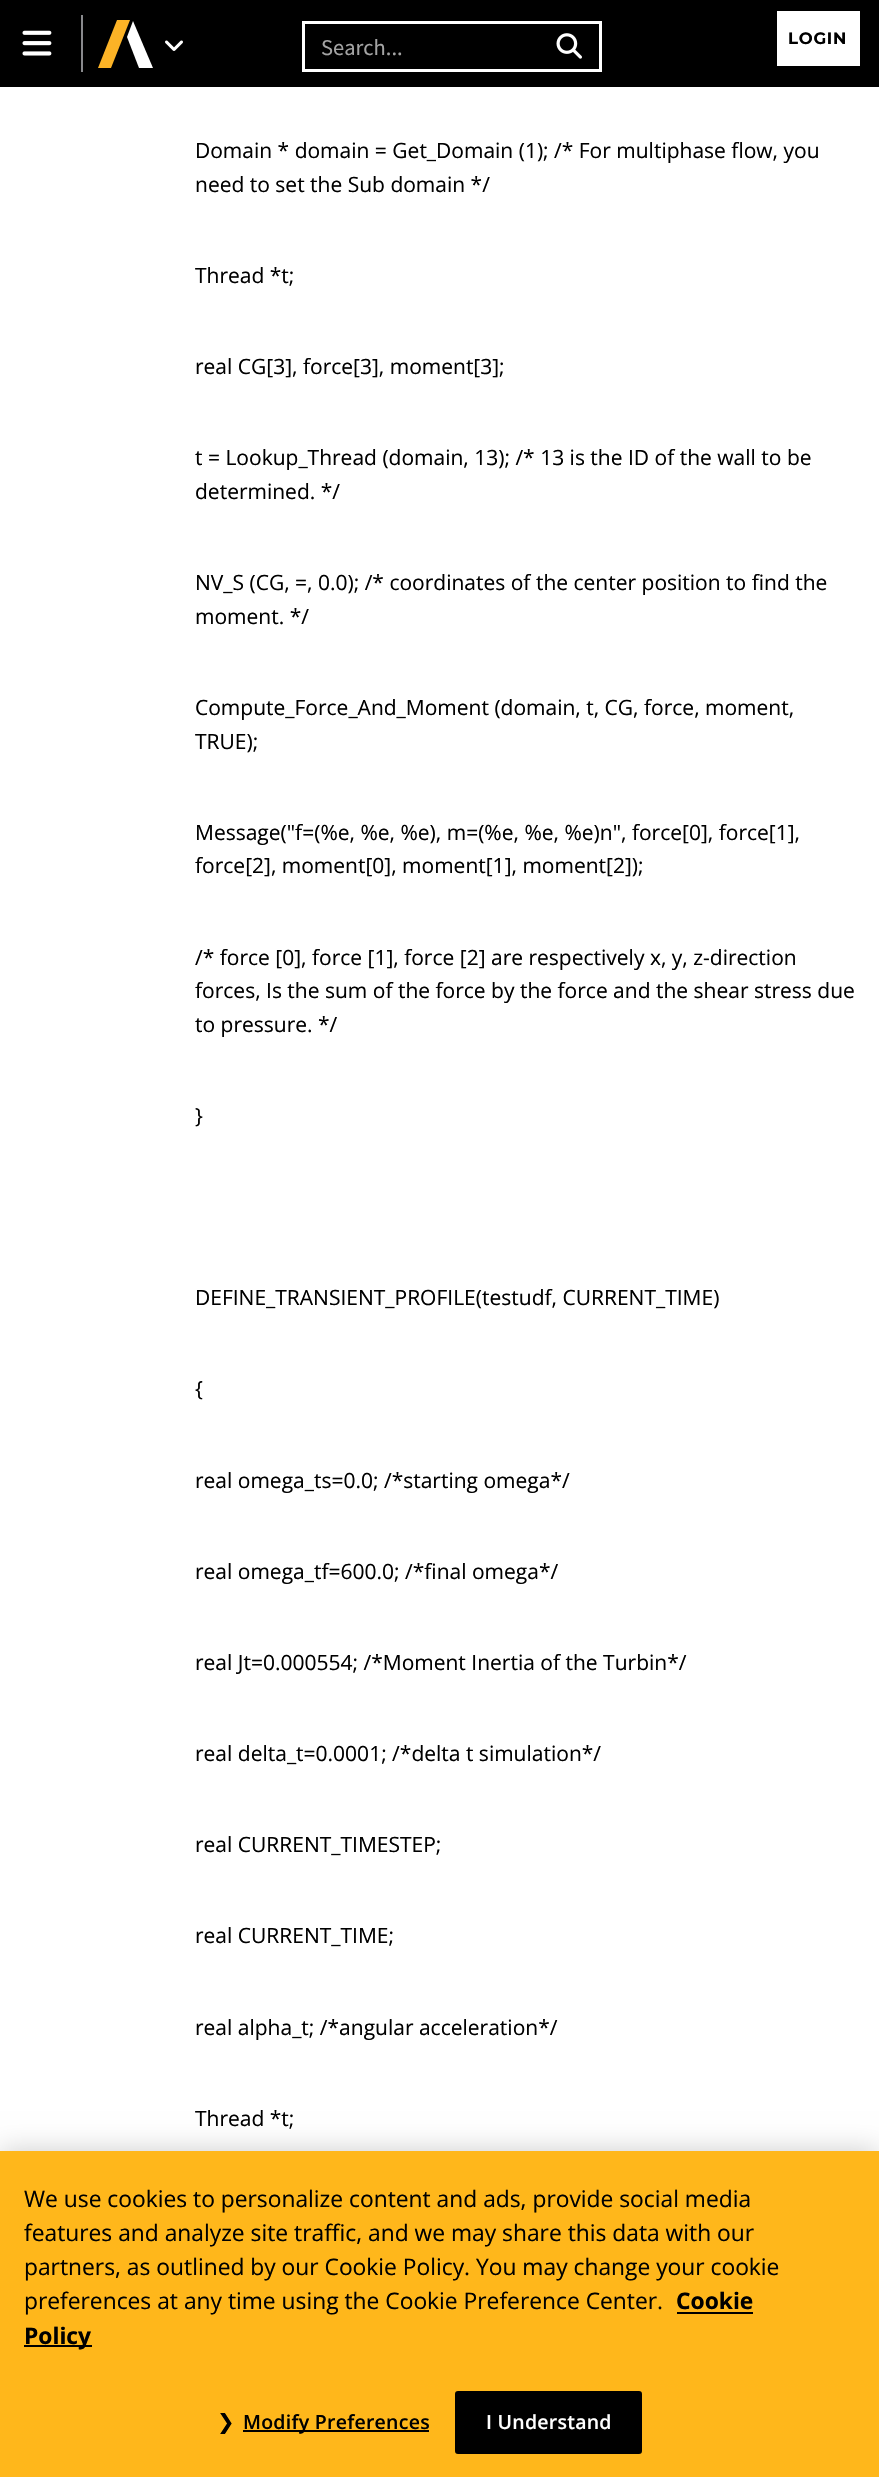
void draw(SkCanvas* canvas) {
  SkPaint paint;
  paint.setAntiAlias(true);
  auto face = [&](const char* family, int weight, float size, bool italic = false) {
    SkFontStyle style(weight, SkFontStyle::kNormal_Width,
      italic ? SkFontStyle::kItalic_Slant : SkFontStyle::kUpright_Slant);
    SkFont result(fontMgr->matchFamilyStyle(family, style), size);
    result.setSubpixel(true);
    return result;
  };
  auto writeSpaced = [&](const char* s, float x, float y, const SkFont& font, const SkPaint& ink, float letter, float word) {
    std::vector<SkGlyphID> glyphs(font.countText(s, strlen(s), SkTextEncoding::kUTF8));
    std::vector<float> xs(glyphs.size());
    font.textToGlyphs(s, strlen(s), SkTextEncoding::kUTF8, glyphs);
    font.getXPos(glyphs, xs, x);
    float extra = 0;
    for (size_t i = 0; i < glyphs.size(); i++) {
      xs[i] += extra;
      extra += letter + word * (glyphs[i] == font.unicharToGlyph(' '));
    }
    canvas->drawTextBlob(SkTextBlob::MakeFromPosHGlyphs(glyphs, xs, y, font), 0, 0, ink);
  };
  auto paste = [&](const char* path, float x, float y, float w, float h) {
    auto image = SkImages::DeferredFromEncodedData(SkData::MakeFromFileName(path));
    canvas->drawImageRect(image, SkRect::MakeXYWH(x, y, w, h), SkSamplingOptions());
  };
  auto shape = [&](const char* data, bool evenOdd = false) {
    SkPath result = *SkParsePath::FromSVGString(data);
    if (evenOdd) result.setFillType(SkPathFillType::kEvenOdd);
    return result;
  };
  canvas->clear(0xffffffff);
  paint.setColor(0xff000000);
  canvas->drawRect(SkRect::MakeXYWH(0, 0, 879, 87), paint);
  paste("img/1.png", 22, 30, 30, 26);
  paint.setColor(0xff898a8d);
  canvas->drawRect(SkRect::MakeXYWH(81, 15, 2, 57), paint);
  paint.setColor(0xfffcb326);
  canvas->drawPath(shape("M98 68L117 20H130L111 68Z"), paint);
  paint.setColor(0xffffffff);
  canvas->drawPath(shape("M153 68H139L127 37L133 21Z"), paint);
  paste("img/2.png", 165, 40, 18, 11);
  paint.setStroke(true);
  paint.setStrokeWidth(3);
  canvas->drawRect(SkRect::MakeXYWH(303.5f, 22.5f, 297, 48), paint);
  paste("img/3.png", 556, 33, 26, 26);
  paint.setStroke(false);
  canvas->drawRect(SkRect::MakeXYWH(777, 11, 83, 55), paint);
  paint.setColor(0x33000000);
  paint.setMaskFilter(SkMaskFilter::MakeBlur(kNormal_SkBlurStyle, 13.5f));
  canvas->drawRect(SkRect::MakeXYWH(0, 2151, 879, 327), paint);
  paint.setMaskFilter(nullptr);
  {
    const struct { float x, y, w, h; SkColor color; } items[] = {
      {0, 2151, 879, 326, 0xffffb71b},
      {677, 2312, 76, 2, 0xff000000},
      {24, 2345, 68, 2, 0xff000000},
      {243, 2430, 186, 2, 0xff000000},
    };
    for (auto [x, y, w, h, color] : items) {
      paint.setColor(color);
      canvas->drawRect(SkRect::MakeXYWH(x, y, w, h), paint);
    }
  }
  canvas->drawRoundRect(SkRect::MakeXYWH(456, 2392, 185, 61), 2, 2, paint);
  paint.setStroke(true);
  paint.setStrokeWidth(2);
  canvas->drawRoundRect(SkRect::MakeXYWH(456, 2392, 185, 61), 2, 2, paint);
  auto f0 = face("Source Sans Pro", 400, 22.5f);
  paint.setStroke(false);
  paint.setColor(0xffa4a4a4);
  canvas->drawString("Search...", 321, 55, f0, paint);
  auto f1 = face("Montserrat", 700, 16.5f);
  paint.setColor(0xff000000);
  writeSpaced("LOGIN", 788, 44, f1, paint, 0.75f, 0);
  auto f2 = face("Open Sans", 400, 21);
  {
    const struct { const char* s; float x, y; } items[] = {
      {"Domain * domain = Get_Domain (1); /* For multiphase flow, you", 195, 158},
      {"need to set the Sub domain */", 195, 192},
      {"Thread *t;", 195, 283},
      {"real CG[3], force[3], moment[3];", 195, 374},
      {"t = Lookup_Thread (domain, 13); /* 13 is the ID of the wall to be", 195, 465},
      {"determined. */", 195, 499},
      {"NV_S (CG, =, 0.0); /* coordinates of the center position to find the", 195, 590},
      {"moment. */", 195, 624},
      {"Compute_Force_And_Moment (domain, t, CG, force, moment,", 195, 715},
      {"TRUE);", 195, 749},
      {"Message(\"f=(%e, %e, %e), m=(%e, %e, %e)n\", force[0], force[1],", 195, 840},
      {"force[2], moment[0], moment[1], moment[2]);", 195, 873},
      {"/* force [0], force [1], force [2] are respectively x, y, z-direction", 195, 965},
      {"forces, Is the sum of the force by the force and the shear stress due", 195, 998},
      {"to pressure. */", 195, 1032},
      {"}", 195, 1123},
      {"DEFINE_TRANSIENT_PROFILE(testudf, CURRENT_TIME)", 195, 1305},
      {"{", 195, 1396},
      {"real omega_ts=0.0; /*starting omega*/", 195, 1488},
      {"real omega_tf=600.0; /*final omega*/", 195, 1579},
      {"real Jt=0.000554; /*Moment Inertia of the Turbin*/", 195, 1670},
      {"real delta_t=0.0001; /*delta t simulation*/", 195, 1761},
      {"real CURRENT_TIMESTEP;", 195, 1852},
      {"real CURRENT_TIME;", 195, 1943},
      {"real alpha_t; /*angular acceleration*/", 195, 2035},
      {"Thread *t;", 195, 2126},
    };
    for (auto [s, x, y] : items) {
      canvas->drawString(s, x, y, f2, paint);
    }
  }
  auto f3 = face("Open Sans", 400, 22.8f);
  {
    const struct { const char* s; float x, y; } items[] = {
      {"We use cookies to personalize content and ads, provide social media", 24, 2207},
      {"features and analyze site traffic, and we may share this data with our", 24, 2241},
      {"partners, as outlined by our Cookie Policy. You may change your cookie", 24, 2275},
      {"preferences at any time using the Cookie Preference Center.", 24, 2309},
    };
    for (auto [s, x, y] : items) {
      canvas->drawString(s, x, y, f3, paint);
    }
  }
  auto f4 = face("Open Sans", 700, 22.8f);
  canvas->drawString("Cookie", 676, 2309, f4, paint);
  canvas->drawString("Policy", 24, 2344, f4, paint);
  auto f5 = face("DejaVu Sans", 400, 21);
  writeSpaced("❯", 217, 2429, f5, paint, 0.25f, 0);
  auto f6 = face("Open Sans", 600, 19.5f);
  writeSpaced("Modify Preferences", 243, 2429, f6, paint, 0.25f, 0);
  paint.setColor(0xffffffff);
  writeSpaced("I Understand", 486, 2429, f6, paint, 0.25f, 0);
}
